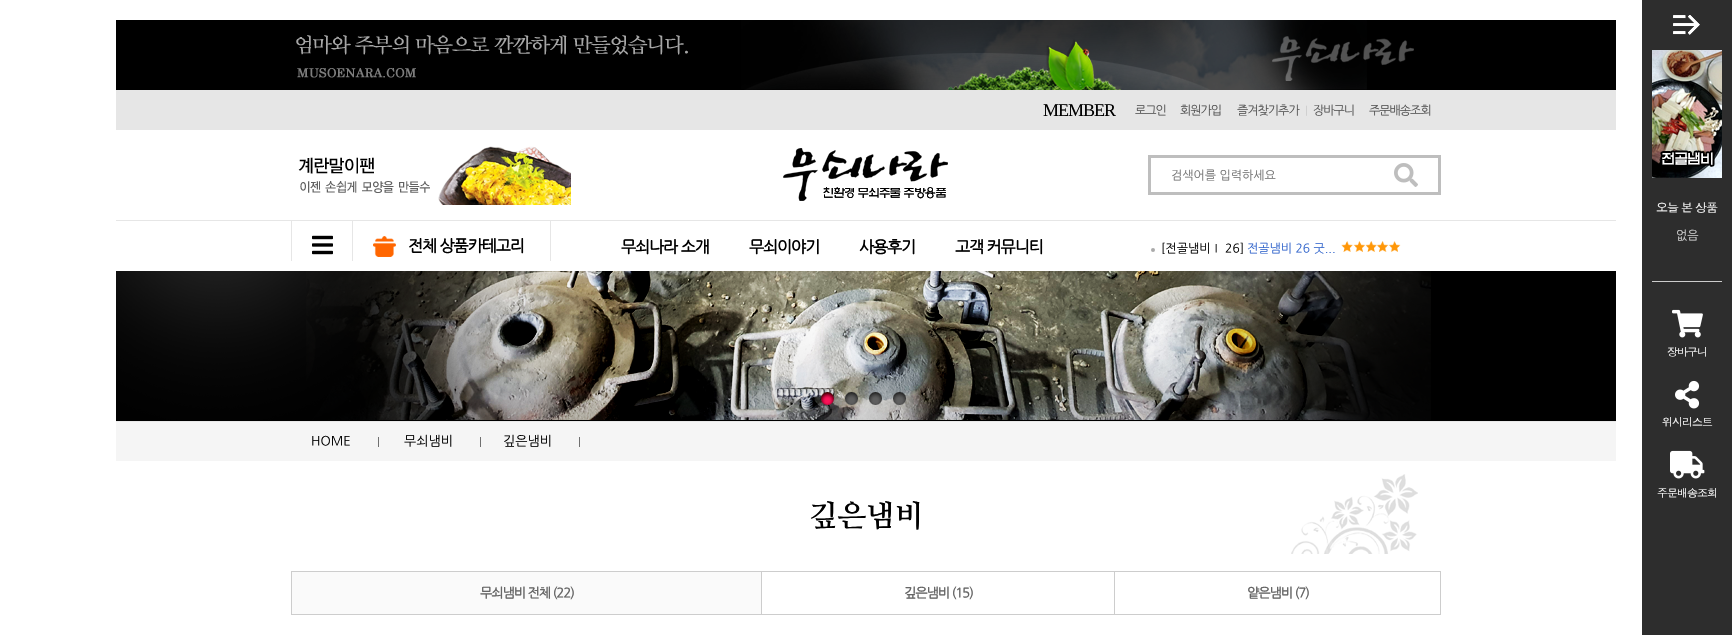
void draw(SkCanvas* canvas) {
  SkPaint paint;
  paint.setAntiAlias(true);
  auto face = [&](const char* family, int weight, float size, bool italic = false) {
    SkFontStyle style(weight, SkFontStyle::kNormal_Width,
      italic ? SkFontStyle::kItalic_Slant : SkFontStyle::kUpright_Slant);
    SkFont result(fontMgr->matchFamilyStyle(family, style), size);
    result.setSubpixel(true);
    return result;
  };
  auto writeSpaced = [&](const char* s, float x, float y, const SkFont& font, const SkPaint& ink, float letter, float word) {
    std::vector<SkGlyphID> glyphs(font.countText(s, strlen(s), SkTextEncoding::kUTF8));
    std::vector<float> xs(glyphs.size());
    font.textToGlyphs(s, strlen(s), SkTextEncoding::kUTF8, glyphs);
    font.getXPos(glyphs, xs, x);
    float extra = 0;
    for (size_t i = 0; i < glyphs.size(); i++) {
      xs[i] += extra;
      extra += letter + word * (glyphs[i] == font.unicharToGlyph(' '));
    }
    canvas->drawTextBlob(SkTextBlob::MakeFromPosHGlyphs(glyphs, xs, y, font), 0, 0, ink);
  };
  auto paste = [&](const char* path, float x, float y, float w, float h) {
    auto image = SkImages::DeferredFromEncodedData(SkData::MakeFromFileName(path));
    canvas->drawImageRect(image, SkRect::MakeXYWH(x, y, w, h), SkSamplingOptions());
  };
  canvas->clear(0xffffffff);
  paint.setColor(0xff000000);
  canvas->drawRect(SkRect::MakeXYWH(116, 20, 1500, 70), paint);
  paste("img/1.png", 296, 20, 1118, 70);
  paint.setColor(0xffe6e6e6);
  canvas->drawRect(SkRect::MakeXYWH(116, 90, 1500, 40), paint);
  paste("img/2.png", 298, 146, 273, 59);
  paste("img/3.png", 783, 148, 165, 53);
  paint.setStroke(true);
  paint.setStrokeWidth(3);
  paint.setColor(0xffbebebe);
  canvas->drawRect(SkRect::MakeXYWH(1149.5f, 156.5f, 290, 37), paint);
  paste("img/4.png", 1394, 163, 24, 24);
  paint.setStroke(false);
  paint.setColor(0xffe6e6e6);
  canvas->drawRect(SkRect::MakeXYWH(116, 220, 1500, 1), paint);
  paint.setColor(0xff2d2d2d);
  canvas->drawRect(SkRect::MakeXYWH(1642, 0, 90, 635), paint);
  paste("img/5.png", 1673, 15, 27, 20);
  paste("img/6.png", 1652, 50, 70, 128);
  paint.setColor(0xffcccccc);
  canvas->drawRect(SkRect::MakeXYWH(1652, 281, 70, 1), paint);
  paste("img/7.png", 1672, 309, 31, 29);
  paste("img/8.png", 1675, 380, 25, 29);
  paste("img/9.png", 1670, 450, 35, 29);
  paint.setColor(0xffe6e6e6);
  canvas->drawRect(SkRect::MakeXYWH(352, 221, 1, 40), paint);
  canvas->drawRect(SkRect::MakeXYWH(291, 221, 1, 40), paint);
  paste("img/10.png", 312, 235, 21, 20);
  paste("img/11.png", 373, 236, 23, 21);
  canvas->drawRect(SkRect::MakeXYWH(550, 221, 1, 40), paint);
  paint.setColor(0xffaaaaaa);
  canvas->drawCircle(1153, 250, 2, paint);
  paste("img/12.png", 1341, 241, 60, 11);
  paint.setColor(0xff000000);
  canvas->drawRect(SkRect::MakeXYWH(116, 271, 1500, 150), paint);
  paste("img/13.png", 116, 271, 1315, 149);
  paste("img/14.png", 821, 392, 13, 13);
  paste("img/15.png", 845, 392, 13, 13);
  paste("img/16.png", 869, 392, 13, 13);
  paste("img/17.png", 893, 392, 13, 13);
  {
    const struct { float x, y, w, h; SkColor color; } items[] = {
      {116, 422, 1500, 39, 0xfff5f5f5},
      {116, 421, 1500, 1, 0xffe9e9e9},
      {378, 437, 1, 10, 0xff707070},
      {480, 437, 1, 10, 0xff707070},
      {579, 437, 1, 10, 0xff707070},
    };
    for (auto [x, y, w, h, color] : items) {
      paint.setColor(color);
      canvas->drawRect(SkRect::MakeXYWH(x, y, w, h), paint);
    }
  }
  paste("img/18.png", 1291, 474, 127, 80);
  paint.setColor(0xfffafafa);
  canvas->drawRect(SkRect::MakeXYWH(291.5f, 571.5f, 470, 43), paint);
  paint.setStroke(true);
  paint.setStrokeWidth(1);
  paint.setColor(0xffcdcdcd);
  canvas->drawRect(SkRect::MakeXYWH(291.5f, 571.5f, 470, 43), paint);
  paint.setStroke(false);
  {
    const struct { float x, y, w, h; SkColor color; } items[] = {
      {762, 571, 679, 1, 0xffcdcdcd},
      {1114, 571, 1, 44, 0xffcdcdcd},
      {762, 614, 353, 1, 0xffcdcdcd},
      {1440, 571, 1, 44, 0xffcdcdcd},
      {1115, 614, 326, 1, 0xffcdcdcd},
    };
    for (auto [x, y, w, h, color] : items) {
      paint.setColor(color);
      canvas->drawRect(SkRect::MakeXYWH(x, y, w, h), paint);
    }
  }
  auto f0 = face("Liberation Serif", 400, 18);
  paint.setColor(0xff000000);
  writeSpaced("MEMBER", 1043, 116, f0, paint, -1, 0);
  auto f1 = face("NanumGothic", 400, 12);
  paint.setColor(0xff555555);
  {
    const struct { const char* s; float x, y; } items[] = {
      {"로그인", 1135, 114},
      {"회원가입", 1180, 114},
      {"즐겨찾기추가", 1237, 114},
    };
    for (auto [s, x, y] : items) {
      writeSpaced(s, x, y, f1, paint, -1, 0);
    }
  }
  auto f2 = face("NanumGothic", 400, 11);
  paint.setColor(0xffcccccc);
  writeSpaced("|", 1305, 114, f2, paint, -1, 0);
  paint.setColor(0xff555555);
  writeSpaced("장바구니", 1313, 114, f1, paint, -1, 0);
  writeSpaced("주문배송조회", 1369, 114, f1, paint, -1, 0);
  paint.setColor(0xff757575);
  canvas->drawString("검색어를 입력하세요", 1171, 179, f1, paint);
  auto f3 = face("Dotum", 400, 12);
  paint.setColor(0xffffffff);
  writeSpaced("오늘 본 상품", 1656, 212, f3, paint, -1, 0);
  paint.setColor(0xffcccccc);
  canvas->drawString("없음", 1676, 239, f1, paint);
  auto f4 = face("Dotum", 400, 11);
  paint.setColor(0xffffffff);
  {
    const struct { const char* s; float x, y; } items[] = {
      {"장바구니", 1667, 356},
      {"위시리스트", 1662, 426},
      {"주문배송조회", 1657, 497},
    };
    for (auto [s, x, y] : items) {
      writeSpaced(s, x, y, f4, paint, -1, 0);
    }
  }
  auto f5 = face("NanumGothic", 700, 16);
  paint.setColor(0xff000000);
  {
    const struct { const char* s; float x, y; } items[] = {
      {"전체 상품카테고리", 408, 251},
      {"무쇠나라 소개", 621, 252},
      {"무쇠이야기", 749, 252},
      {"사용후기", 859, 252},
      {"고객 커뮤니티", 955, 252},
    };
    for (auto [s, x, y] : items) {
      writeSpaced(s, x, y, f5, paint, -1, 0);
    }
  }
  canvas->drawString("[전골냄비Ⅰ 26]", 1161, 252, f1, paint);
  paint.setColor(0xff3366cc);
  canvas->drawString("전골냄비 26 굿...", 1247, 252, f1, paint);
  auto f6 = face("NanumGothic", 400, 13);
  paint.setColor(0xff000000);
  {
    const struct { const char* s; float x, y; } items[] = {
      {"HOME", 311, 445},
      {"무쇠냄비", 404, 445},
      {"깊은냄비", 503, 445},
    };
    for (auto [s, x, y] : items) {
      canvas->drawString(s, x, y, f6, paint);
    }
  }
  auto f7 = face("NanumMyeongjo", 700, 30);
  canvas->drawString("깊은냄비", 809, 526, f7, paint);
  auto f8 = face("NanumGothic", 700, 13);
  paint.setColor(0xff666666);
  {
    const struct { const char* s; float x, y; } items[] = {
      {"무쇠냄비 전체 (22)", 480, 597},
      {"깊은냄비 (15)", 904, 597},
      {"얕은냄비 (7)", 1247, 597},
    };
    for (auto [s, x, y] : items) {
      writeSpaced(s, x, y, f8, paint, -1, 0);
    }
  }
}
